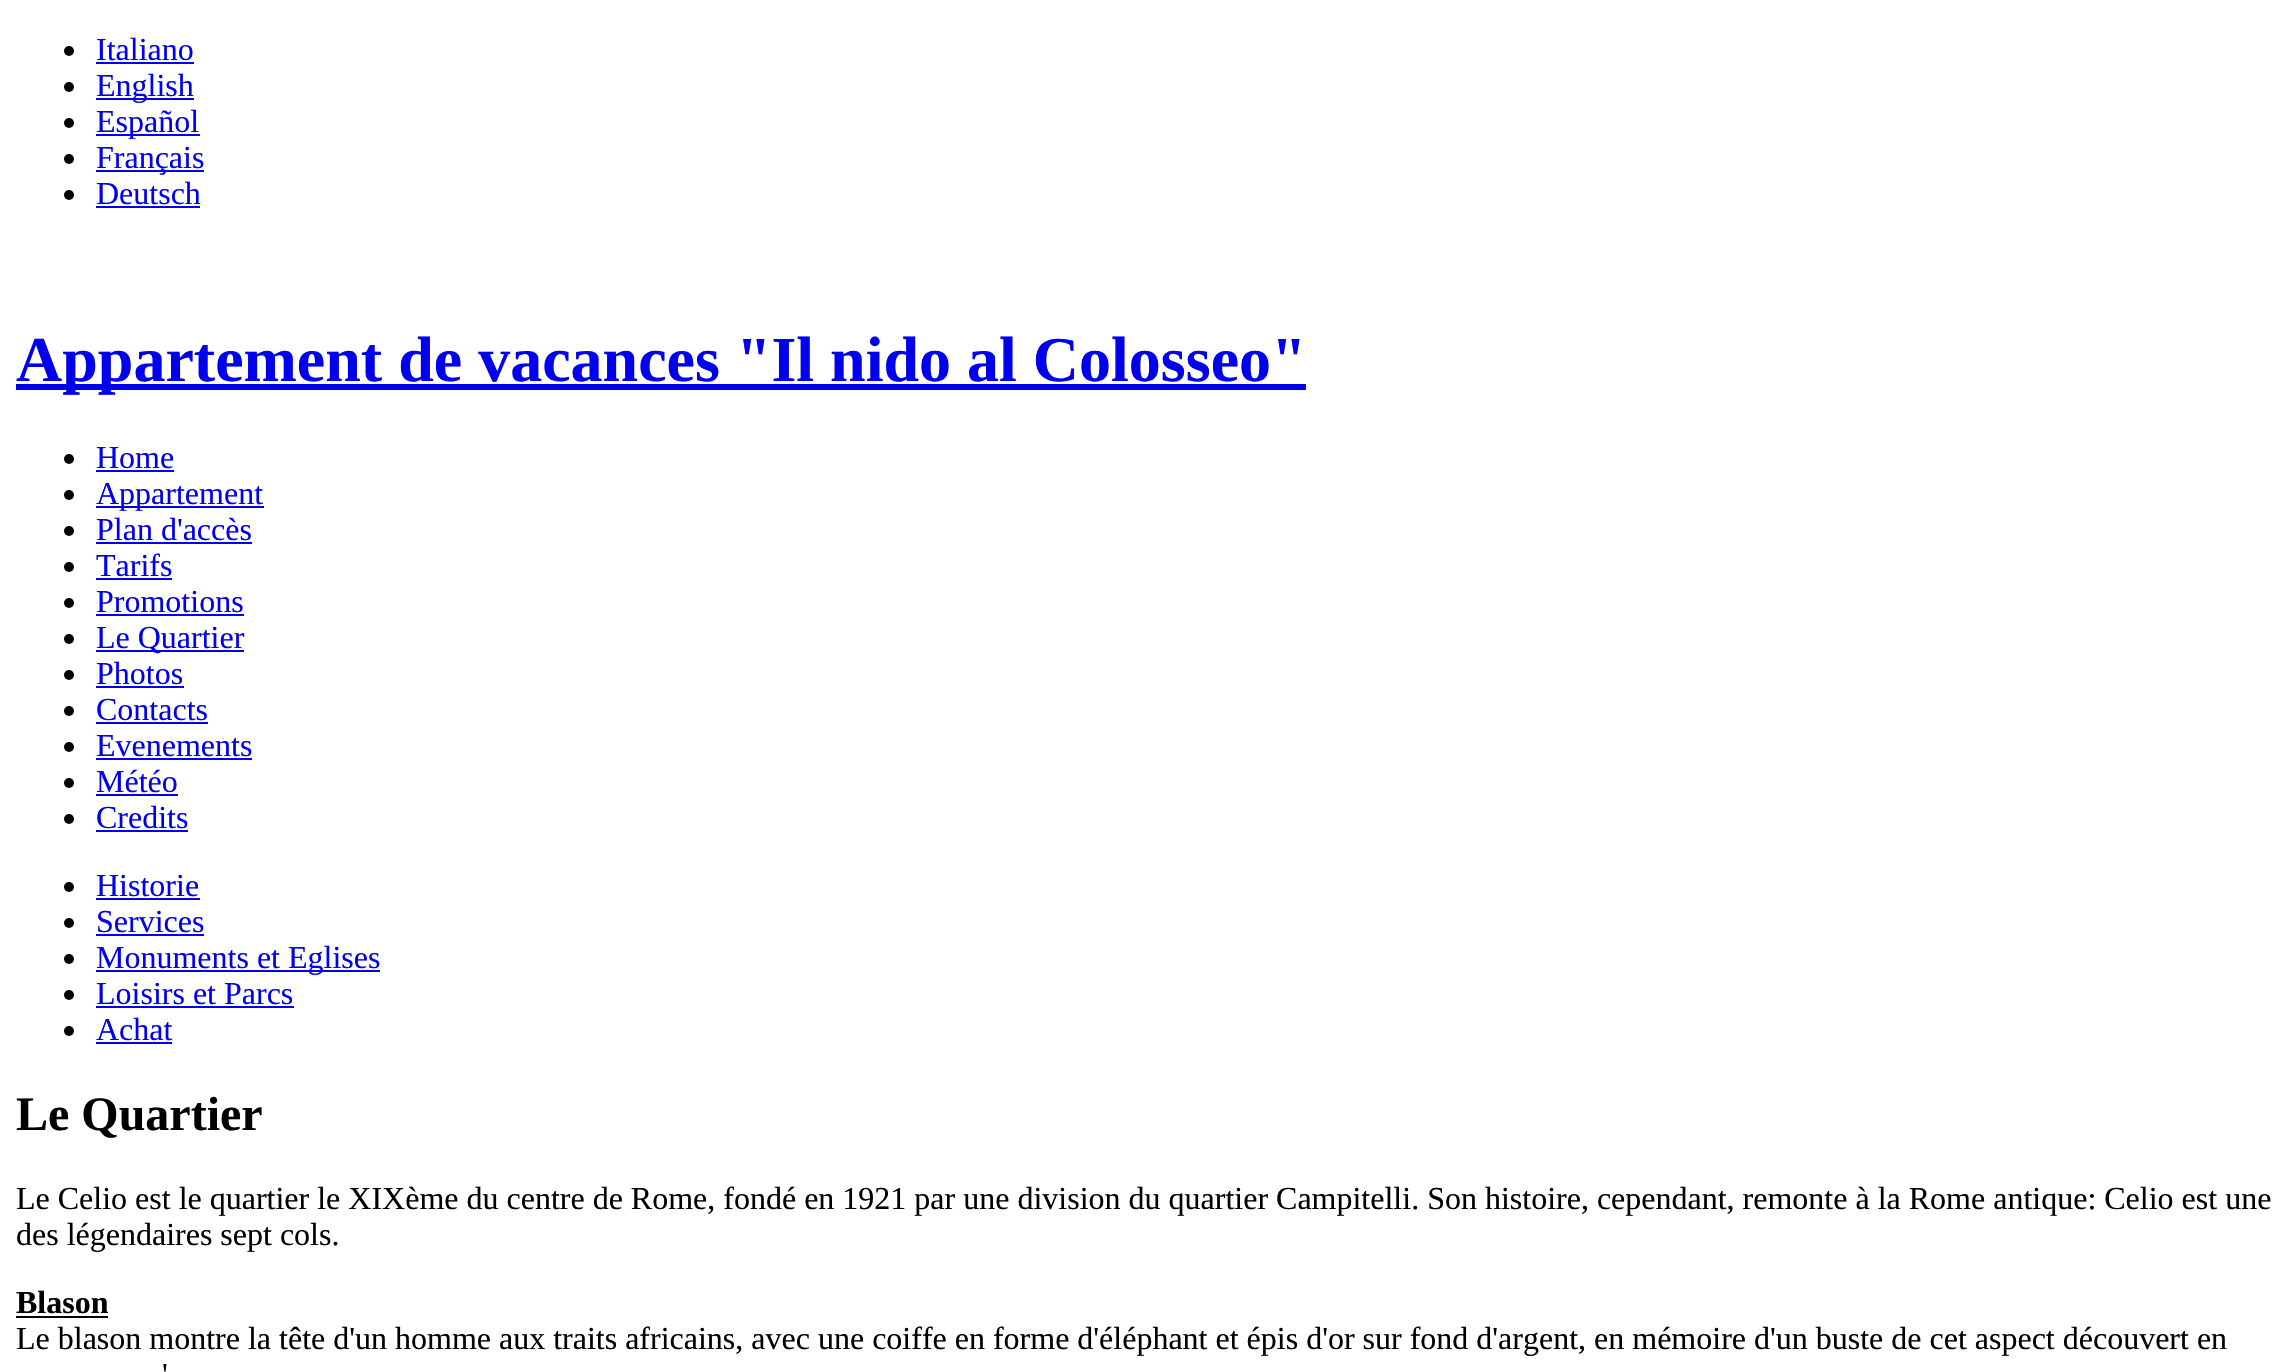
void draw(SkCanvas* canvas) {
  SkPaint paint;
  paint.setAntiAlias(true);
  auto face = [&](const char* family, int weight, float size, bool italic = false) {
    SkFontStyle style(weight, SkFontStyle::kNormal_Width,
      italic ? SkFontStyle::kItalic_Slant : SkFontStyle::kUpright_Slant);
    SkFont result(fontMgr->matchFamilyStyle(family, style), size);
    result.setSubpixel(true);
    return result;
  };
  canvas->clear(0xffffffff);
  paint.setColor(0xff000000);
  canvas->drawCircle(69, 51, 5, paint);
  paint.setColor(0xff0000ee);
  canvas->drawRect(SkRect::MakeXYWH(96, 62, 98, 2), paint);
  paint.setColor(0xff000000);
  canvas->drawCircle(69, 87, 5, paint);
  paint.setColor(0xff0000ee);
  canvas->drawRect(SkRect::MakeXYWH(96, 98, 98, 2), paint);
  paint.setColor(0xff000000);
  canvas->drawCircle(69, 123, 5, paint);
  paint.setColor(0xff0000ee);
  canvas->drawRect(SkRect::MakeXYWH(96, 134, 104, 2), paint);
  paint.setColor(0xff000000);
  canvas->drawCircle(69, 159, 5, paint);
  paint.setColor(0xff0000ee);
  canvas->drawRect(SkRect::MakeXYWH(96, 170, 108, 2), paint);
  paint.setColor(0xff000000);
  canvas->drawCircle(69, 195, 5, paint);
  paint.setColor(0xff0000ee);
  canvas->drawRect(SkRect::MakeXYWH(96, 206, 104, 2), paint);
  canvas->drawRect(SkRect::MakeXYWH(16, 384, 1290, 6), paint);
  paint.setColor(0xff000000);
  canvas->drawCircle(69, 459, 5, paint);
  paint.setColor(0xff0000ee);
  canvas->drawRect(SkRect::MakeXYWH(96, 470, 78, 2), paint);
  paint.setColor(0xff000000);
  canvas->drawCircle(69, 495, 5, paint);
  paint.setColor(0xff0000ee);
  canvas->drawRect(SkRect::MakeXYWH(96, 506, 168, 2), paint);
  paint.setColor(0xff000000);
  canvas->drawCircle(69, 531, 5, paint);
  paint.setColor(0xff0000ee);
  canvas->drawRect(SkRect::MakeXYWH(96, 542, 156, 2), paint);
  paint.setColor(0xff000000);
  canvas->drawCircle(69, 567, 5, paint);
  paint.setColor(0xff0000ee);
  canvas->drawRect(SkRect::MakeXYWH(96, 578, 76, 2), paint);
  paint.setColor(0xff000000);
  canvas->drawCircle(69, 603, 5, paint);
  paint.setColor(0xff0000ee);
  canvas->drawRect(SkRect::MakeXYWH(96, 614, 148, 2), paint);
  paint.setColor(0xff000000);
  canvas->drawCircle(69, 639, 5, paint);
  paint.setColor(0xff0000ee);
  canvas->drawRect(SkRect::MakeXYWH(96, 650, 148, 2), paint);
  paint.setColor(0xff000000);
  canvas->drawCircle(69, 675, 5, paint);
  paint.setColor(0xff0000ee);
  canvas->drawRect(SkRect::MakeXYWH(96, 686, 88, 2), paint);
  paint.setColor(0xff000000);
  canvas->drawCircle(69, 711, 5, paint);
  paint.setColor(0xff0000ee);
  canvas->drawRect(SkRect::MakeXYWH(96, 722, 112, 2), paint);
  paint.setColor(0xff000000);
  canvas->drawCircle(69, 747, 5, paint);
  paint.setColor(0xff0000ee);
  canvas->drawRect(SkRect::MakeXYWH(96, 758, 156, 2), paint);
  paint.setColor(0xff000000);
  canvas->drawCircle(69, 783, 5, paint);
  paint.setColor(0xff0000ee);
  canvas->drawRect(SkRect::MakeXYWH(96, 794, 82, 2), paint);
  paint.setColor(0xff000000);
  canvas->drawCircle(69, 819, 5, paint);
  paint.setColor(0xff0000ee);
  canvas->drawRect(SkRect::MakeXYWH(96, 830, 92, 2), paint);
  paint.setColor(0xff000000);
  canvas->drawCircle(69, 887, 5, paint);
  paint.setColor(0xff0000ee);
  canvas->drawRect(SkRect::MakeXYWH(96, 898, 104, 2), paint);
  paint.setColor(0xff000000);
  canvas->drawCircle(69, 923, 5, paint);
  paint.setColor(0xff0000ee);
  canvas->drawRect(SkRect::MakeXYWH(96, 934, 108, 2), paint);
  paint.setColor(0xff000000);
  canvas->drawCircle(69, 959, 5, paint);
  paint.setColor(0xff0000ee);
  canvas->drawRect(SkRect::MakeXYWH(96, 970, 284, 2), paint);
  paint.setColor(0xff000000);
  canvas->drawCircle(69, 995, 5, paint);
  paint.setColor(0xff0000ee);
  canvas->drawRect(SkRect::MakeXYWH(96, 1006, 198, 2), paint);
  paint.setColor(0xff000000);
  canvas->drawCircle(69, 1031, 5, paint);
  paint.setColor(0xff0000ee);
  canvas->drawRect(SkRect::MakeXYWH(96, 1042, 76, 2), paint);
  paint.setColor(0xff000000);
  canvas->drawRect(SkRect::MakeXYWH(16, 1316, 92, 2), paint);
  auto f0 = face("Liberation Serif", 400, 32);
  paint.setColor(0xff0000ee);
  {
    const struct { const char* s; float x, y; } items[] = {
      {"Italiano", 96, 60},
      {"English", 96, 96},
      {"Español", 96, 132},
      {"Français", 96, 168},
      {"Deutsch", 96, 204},
    };
    for (auto [s, x, y] : items) {
      canvas->drawString(s, x, y, f0, paint);
    }
  }
  auto f1 = face("Liberation Serif", 700, 64);
  canvas->drawString("Appartement de vacances \"Il nido al Colosseo\"", 16, 381, f1, paint);
  {
    const struct { const char* s; float x, y; } items[] = {
      {"Home", 96, 468},
      {"Appartement", 96, 504},
      {"Plan d'accès", 96, 540},
      {"Tarifs", 96, 576},
      {"Promotions", 96, 612},
      {"Le Quartier", 96, 648},
      {"Photos", 96, 684},
      {"Contacts", 96, 720},
      {"Evenements", 96, 756},
      {"Météo", 96, 792},
      {"Credits", 96, 828},
      {"Historie", 96, 896},
      {"Services", 96, 932},
      {"Monuments et Eglises", 96, 968},
      {"Loisirs et Parcs", 96, 1004},
      {"Achat", 96, 1040},
    };
    for (auto [s, x, y] : items) {
      canvas->drawString(s, x, y, f0, paint);
    }
  }
  auto f2 = face("Liberation Serif", 700, 48);
  paint.setColor(0xff000000);
  canvas->drawString("Le Quartier", 16, 1130, f2, paint);
  canvas->drawString("Le Celio est le quartier le XIXème du centre de Rome, fondé en 1921 par une division du quartier Campitelli. Son histoire, cependant, remonte à la Rome antique: Celio est une", 16, 1209, f0, paint);
  canvas->drawString("des légendaires sept cols.", 16, 1245, f0, paint);
  auto f3 = face("Liberation Serif", 700, 32);
  canvas->drawString("Blason", 16, 1313, f3, paint);
  canvas->drawString("Le blason montre la tête d'un homme aux traits africains, avec une coiffe en forme d'éléphant et épis d'or sur fond d'argent, en mémoire d'un buste de cet aspect découvert en", 16, 1349, f0, paint);
  canvas->drawString("'", 162, 1385, f0, paint);
}
